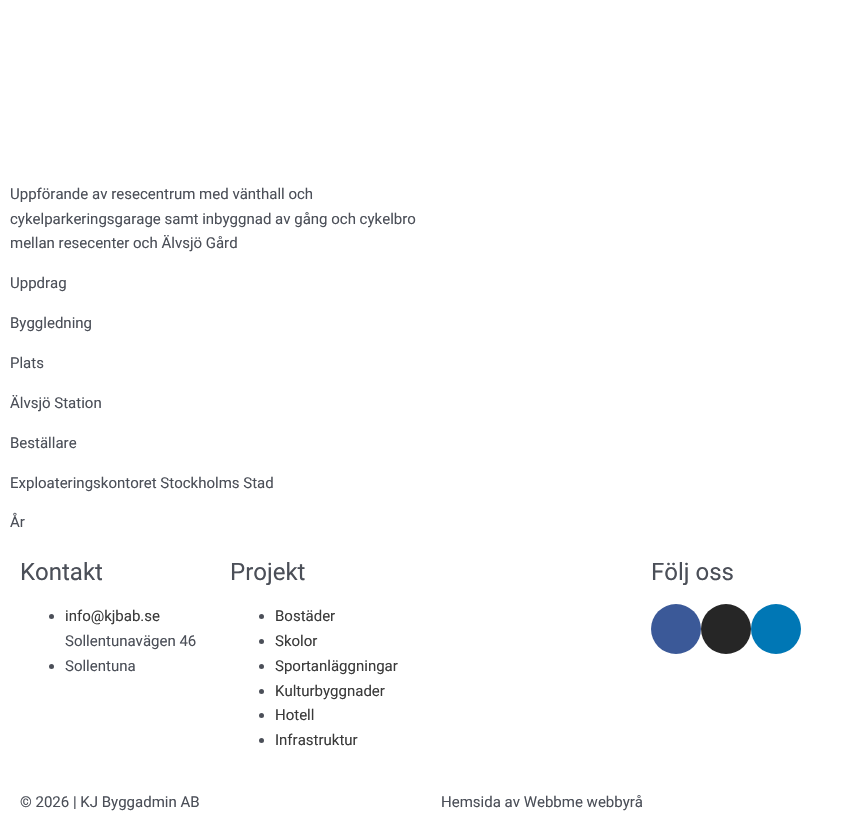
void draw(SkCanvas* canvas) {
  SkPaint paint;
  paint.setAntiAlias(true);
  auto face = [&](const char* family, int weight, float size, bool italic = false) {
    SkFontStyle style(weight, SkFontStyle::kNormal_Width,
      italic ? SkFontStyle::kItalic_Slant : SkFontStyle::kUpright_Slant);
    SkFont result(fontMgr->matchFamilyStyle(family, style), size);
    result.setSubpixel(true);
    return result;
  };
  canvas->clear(0xffffffff);
  paint.setColor(0xff4b4f58);
  canvas->drawCircle(51.5f, 616.5f, 2.5f, paint);
  canvas->drawCircle(51.5f, 666.5f, 2.5f, paint);
  canvas->drawCircle(261.5f, 616.5f, 2.5f, paint);
  canvas->drawCircle(261.5f, 641.5f, 2.5f, paint);
  canvas->drawCircle(261.5f, 666.5f, 2.5f, paint);
  canvas->drawCircle(261.5f, 691.5f, 2.5f, paint);
  canvas->drawCircle(261.5f, 715.5f, 2.5f, paint);
  canvas->drawCircle(261.5f, 740.5f, 2.5f, paint);
  paint.setColor(0xff3b5998);
  canvas->drawCircle(676, 629, 25, paint);
  paint.setColor(0xff262626);
  canvas->drawCircle(726, 629, 25, paint);
  paint.setColor(0xff0077b5);
  canvas->drawCircle(776, 629, 25, paint);
  auto f0 = face("Roboto", 400, 15);
  paint.setColor(0xff4b4f58);
  {
    const struct { const char* s; float x, y; } items[] = {
      {"Uppförande av resecentrum med vänthall och", 10, 199},
      {"cykelparkeringsgarage samt inbyggnad av gång och cykelbro", 10, 224},
      {"mellan resecenter och Älvsjö Gård", 10, 248},
      {"Uppdrag", 10, 288},
      {"Byggledning", 10, 328},
      {"Plats", 10, 368},
      {"Älvsjö Station", 10, 408},
      {"Beställare", 10, 448},
      {"Exploateringskontoret Stockholms Stad", 10, 488},
      {"År", 10, 527},
    };
    for (auto [s, x, y] : items) {
      canvas->drawString(s, x, y, f0, paint);
    }
  }
  auto f1 = face("Roboto", 400, 24);
  canvas->drawString("Kontakt", 20, 580, f1, paint);
  paint.setColor(0xff3a3a3a);
  canvas->drawString("info@kjbab.se", 65, 621, f0, paint);
  paint.setColor(0xff4b4f58);
  canvas->drawString("Sollentunavägen 46", 65, 646, f0, paint);
  canvas->drawString("Sollentuna", 65, 671, f0, paint);
  canvas->drawString("Projekt", 230, 580, f1, paint);
  paint.setColor(0xff3a3a3a);
  {
    const struct { const char* s; float x, y; } items[] = {
      {"Bostäder", 275, 621},
      {"Skolor", 275, 646},
      {"Sportanläggningar", 275, 671},
      {"Kulturbyggnader", 275, 696},
      {"Hotell", 275, 720},
      {"Infrastruktur", 275, 745},
    };
    for (auto [s, x, y] : items) {
      canvas->drawString(s, x, y, f0, paint);
    }
  }
  paint.setColor(0xff4b4f58);
  canvas->drawString("Följ oss", 651, 580, f1, paint);
  canvas->drawString("© 2026 | KJ Byggadmin AB", 20, 807, f0, paint);
  canvas->drawString("Hemsida av Webbme webbyrå", 441, 807, f0, paint);
}
